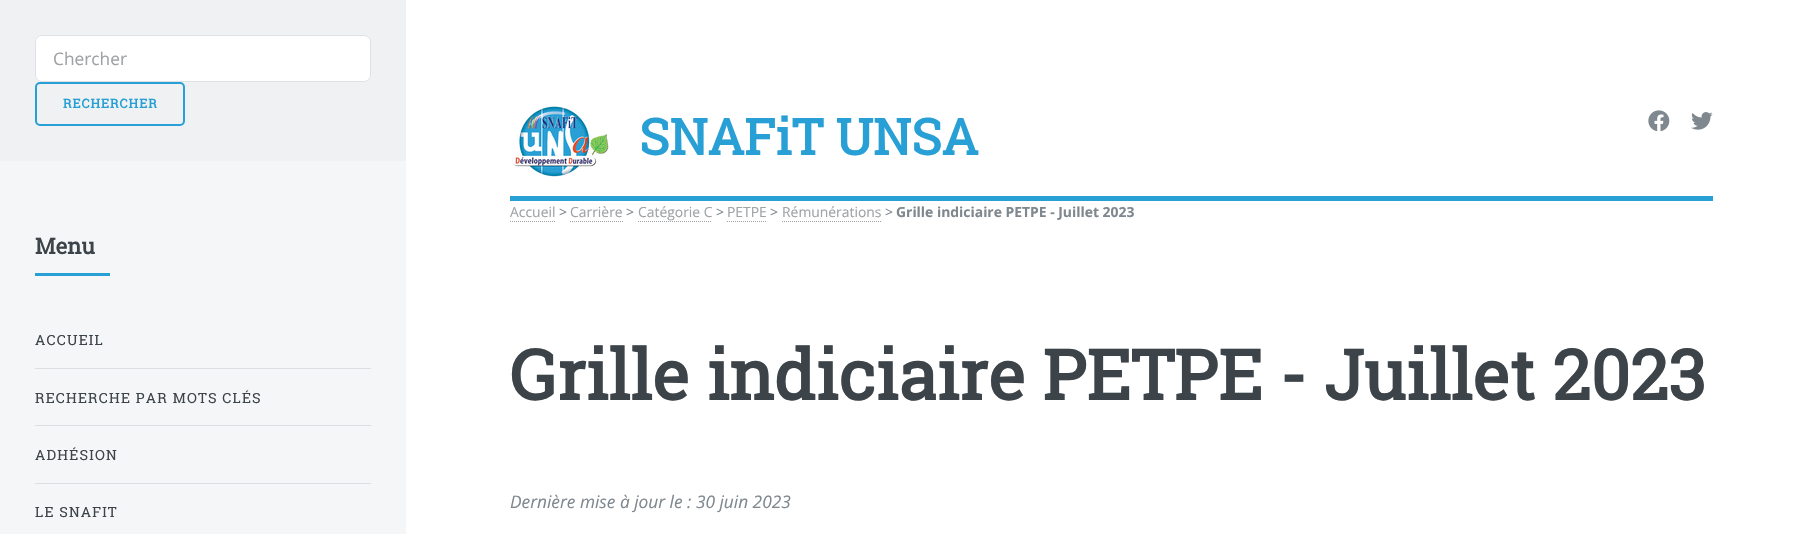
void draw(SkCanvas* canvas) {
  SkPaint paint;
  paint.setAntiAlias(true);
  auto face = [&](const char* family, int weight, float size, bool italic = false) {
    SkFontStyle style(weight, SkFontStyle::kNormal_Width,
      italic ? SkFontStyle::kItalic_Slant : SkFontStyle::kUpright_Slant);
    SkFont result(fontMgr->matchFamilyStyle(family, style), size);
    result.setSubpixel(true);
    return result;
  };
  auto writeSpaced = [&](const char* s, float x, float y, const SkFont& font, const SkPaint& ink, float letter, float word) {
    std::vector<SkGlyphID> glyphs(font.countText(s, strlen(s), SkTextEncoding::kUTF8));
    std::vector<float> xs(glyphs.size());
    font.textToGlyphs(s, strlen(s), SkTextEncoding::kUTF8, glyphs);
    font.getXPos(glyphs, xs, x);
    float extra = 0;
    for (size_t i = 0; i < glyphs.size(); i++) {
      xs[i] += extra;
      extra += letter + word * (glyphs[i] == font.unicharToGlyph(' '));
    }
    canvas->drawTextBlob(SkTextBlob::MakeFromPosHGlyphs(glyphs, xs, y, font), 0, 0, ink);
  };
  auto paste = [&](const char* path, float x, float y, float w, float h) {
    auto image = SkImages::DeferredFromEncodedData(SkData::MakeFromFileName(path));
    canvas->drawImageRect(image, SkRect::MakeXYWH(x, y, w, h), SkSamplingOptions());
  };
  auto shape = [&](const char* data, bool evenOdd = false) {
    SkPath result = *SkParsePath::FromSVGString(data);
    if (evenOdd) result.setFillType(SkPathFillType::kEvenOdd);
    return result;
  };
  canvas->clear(0xffffffff);
  paint.setColor(0xfff5f6f7);
  canvas->drawRect(SkRect::MakeXYWH(0, 161, 406, 373), paint);
  paint.setColor(0xffeff1f2);
  canvas->drawRect(SkRect::MakeXYWH(0, 0, 406, 161), paint);
  paint.setColor(0xffffffff);
  canvas->drawRoundRect(SkRect::MakeXYWH(35, 35, 336, 47), 7, 7, paint);
  paint.setStroke(true);
  paint.setStrokeWidth(1);
  paint.setColor(0xbfd2d7d9);
  canvas->drawRoundRect(SkRect::MakeXYWH(35.5f, 35.5f, 335, 46), 6.5f, 6.5f, paint);
  paint.setStrokeWidth(2);
  paint.setColor(0xff29a0d5);
  canvas->drawRoundRect(SkRect::MakeXYWH(36, 83, 148, 42), 4, 4, paint);
  paint.setStroke(false);
  {
    const struct { float x, y, w, h; SkColor color; } items[] = {
      {35, 273, 75, 3, 0xff29a0d5},
      {35, 368, 336, 1, 0xffdbdfe1},
      {35, 425, 336, 1, 0xffdbdfe1},
      {35, 483, 336, 1, 0xffdbdfe1},
      {510, 196, 1203, 5, 0xff29a0d5},
    };
    for (auto [x, y, w, h, color] : items) {
      paint.setColor(color);
      canvas->drawRect(SkRect::MakeXYWH(x, y, w, h), paint);
    }
  }
  paste("img/1.png", 512, 106, 97, 71);
  paste("img/2.png", 1648, 110, 22, 22);
  paste("img/3.png", 1691, 112, 22, 18);
  paint.setStroke(true);
  paint.setStrokeWidth(1);
  paint.setColor(0xff9fa3a6);
  paint.setPathEffect(SkDashPathEffect::Make({{1, 1}}, 0));
  canvas->drawPath(shape("M510 221.5H555"), paint);
  paint.setPathEffect(nullptr);
  paint.setPathEffect(SkDashPathEffect::Make({{1, 1}}, 0));
  canvas->drawPath(shape("M570 221.5H623"), paint);
  paint.setPathEffect(nullptr);
  paint.setPathEffect(SkDashPathEffect::Make({{1, 1}}, 0));
  canvas->drawPath(shape("M638 221.5H712"), paint);
  paint.setPathEffect(nullptr);
  paint.setPathEffect(SkDashPathEffect::Make({{1, 1}}, 0));
  canvas->drawPath(shape("M727 221.5H767"), paint);
  paint.setPathEffect(nullptr);
  paint.setPathEffect(SkDashPathEffect::Make({{1, 1}}, 0));
  canvas->drawPath(shape("M782 221.5H881"), paint);
  paint.setPathEffect(nullptr);
  auto f0 = face("Open Sans", 400, 17.3f);
  paint.setStroke(false);
  canvas->drawString("Chercher", 53, 65, f0, paint);
  auto f1 = face("Roboto Slab", 700, 12.5f);
  paint.setColor(0xff29a0d5);
  writeSpaced("RECHERCHER", 63, 108, f1, paint, 1, 0);
  auto f2 = face("Roboto Slab", 700, 22);
  paint.setColor(0xff3d4449);
  canvas->drawString("Menu", 35, 254, f2, paint);
  auto f3 = face("Roboto Slab", 400, 14);
  {
    const struct { const char* s; float x, y; } items[] = {
      {"ACCUEIL", 35, 345},
      {"RECHERCHE PAR MOTS CLÉS", 35, 403},
      {"ADHÉSION", 35, 460},
      {"LE SNAFIT", 35, 517},
    };
    for (auto [s, x, y] : items) {
      writeSpaced(s, x, y, f3, paint, 1.2f, 0);
    }
  }
  auto f4 = face("Roboto Slab", 700, 50);
  paint.setColor(0xff29a0d5);
  canvas->drawString("SNAFiT UNSA", 639, 155, f4, paint);
  auto f5 = face("Open Sans", 400, 13.9f);
  paint.setColor(0xff9fa3a6);
  canvas->drawString("Accueil", 510, 217, f5, paint);
  paint.setColor(0xff7f888f);
  canvas->drawString(">", 559, 217, f5, paint);
  paint.setColor(0xff9fa3a6);
  canvas->drawString("Carrière", 570, 217, f5, paint);
  paint.setColor(0xff7f888f);
  canvas->drawString(">", 626, 217, f5, paint);
  paint.setColor(0xff9fa3a6);
  canvas->drawString("Catégorie C", 638, 217, f5, paint);
  paint.setColor(0xff7f888f);
  canvas->drawString(">", 716, 217, f5, paint);
  paint.setColor(0xff9fa3a6);
  canvas->drawString("PETPE", 727, 217, f5, paint);
  paint.setColor(0xff7f888f);
  canvas->drawString(">", 770, 217, f5, paint);
  paint.setColor(0xff9fa3a6);
  canvas->drawString("Rémunérations", 782, 217, f5, paint);
  paint.setColor(0xff7f888f);
  canvas->drawString(">", 885, 217, f5, paint);
  auto f6 = face("Open Sans", 700, 13.9f);
  canvas->drawString("Grille indiciaire PETPE - Juillet 2023", 896, 217, f6, paint);
  auto f7 = face("Roboto Slab", 700, 69.3f);
  paint.setColor(0xff3d4449);
  canvas->drawString("Grille indiciaire PETPE - Juillet 2023", 510, 400, f7, paint);
  auto f8 = face("Open Sans", 400, 17.3f, true);
  paint.setColor(0xff7f888f);
  canvas->drawString("Dernière mise à jour le : 30 juin 2023", 510, 508, f8, paint);
}
